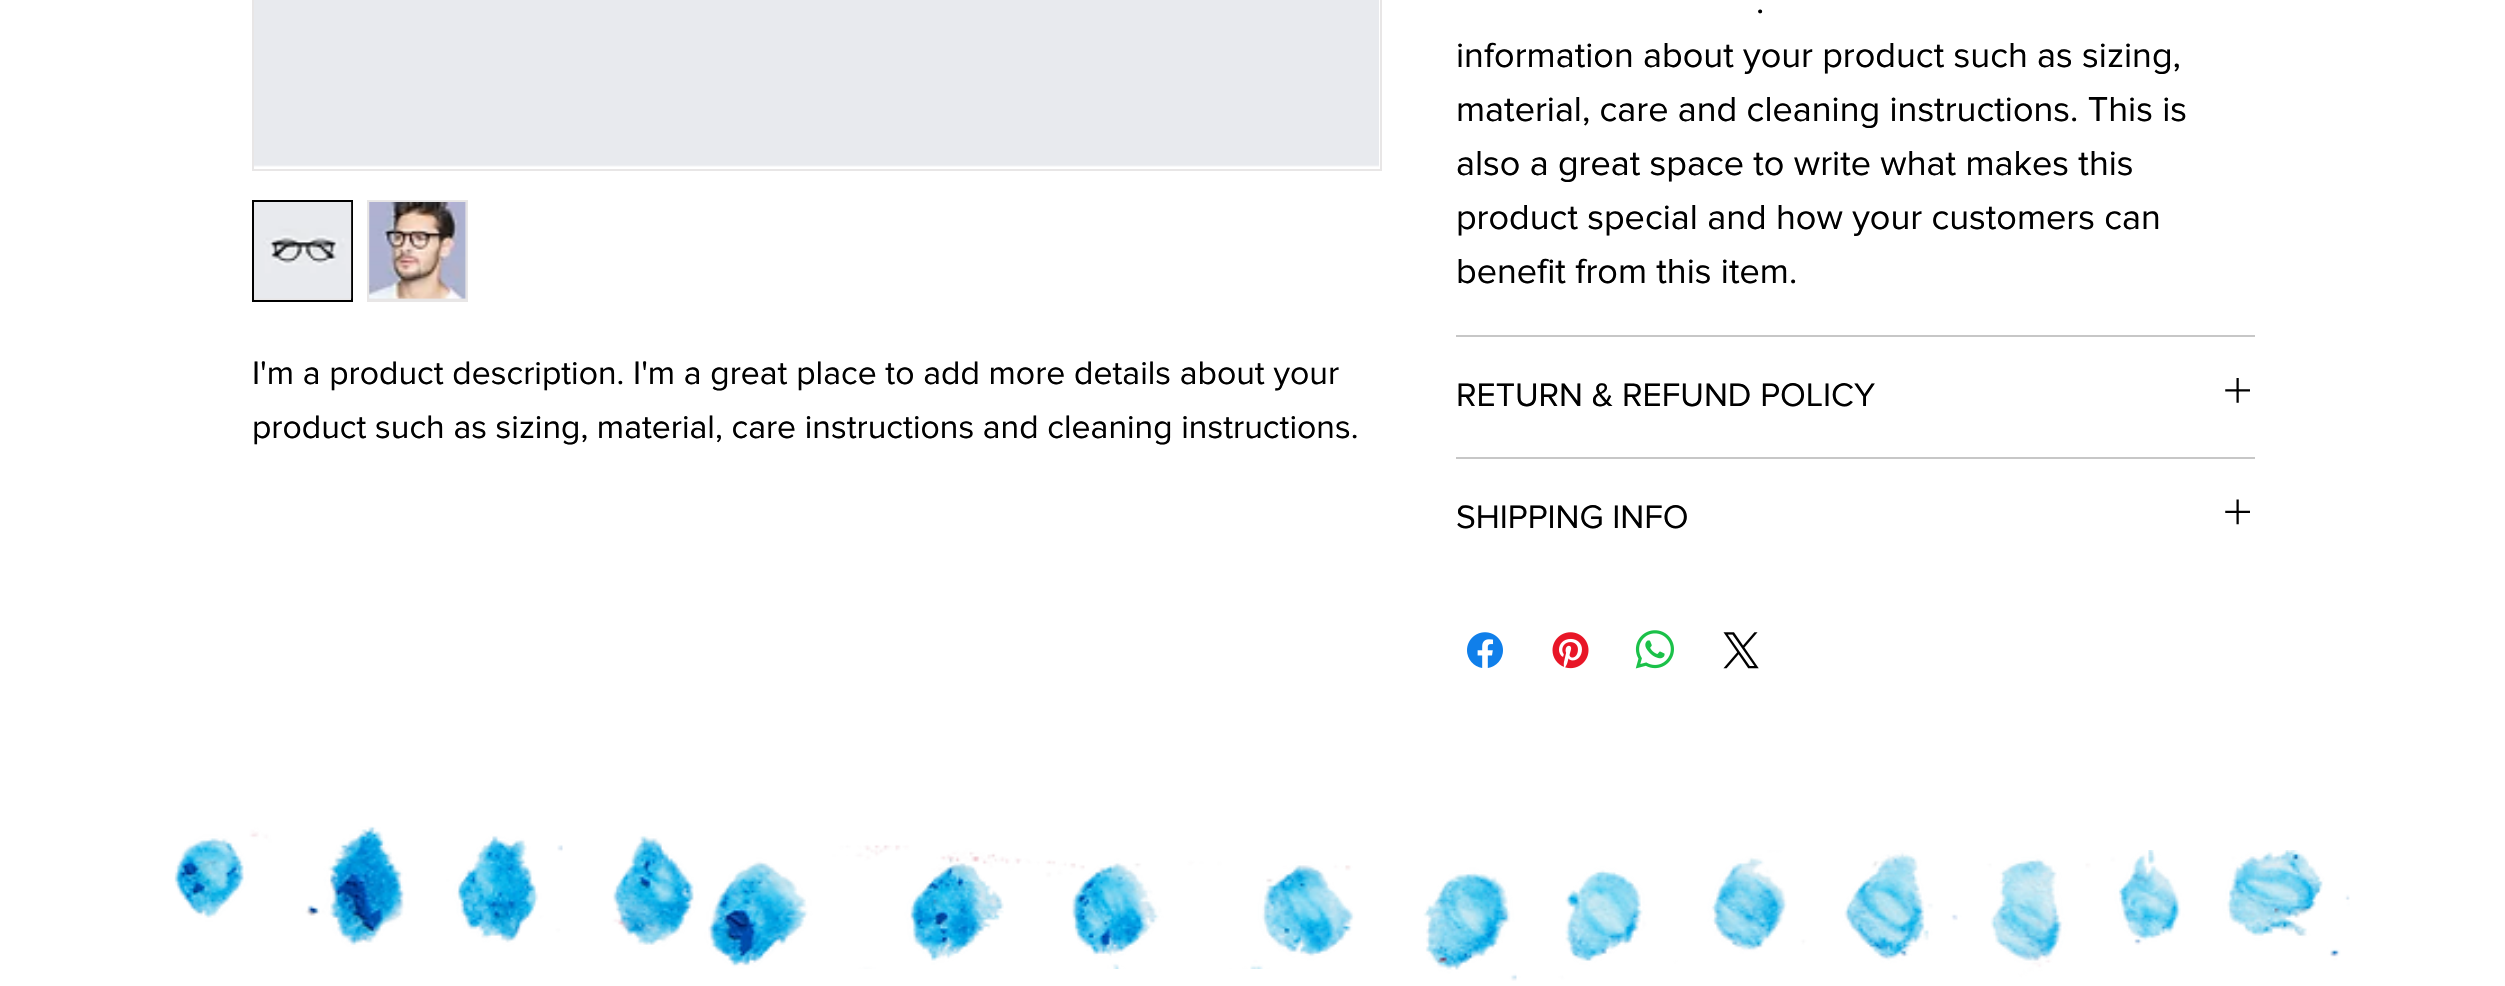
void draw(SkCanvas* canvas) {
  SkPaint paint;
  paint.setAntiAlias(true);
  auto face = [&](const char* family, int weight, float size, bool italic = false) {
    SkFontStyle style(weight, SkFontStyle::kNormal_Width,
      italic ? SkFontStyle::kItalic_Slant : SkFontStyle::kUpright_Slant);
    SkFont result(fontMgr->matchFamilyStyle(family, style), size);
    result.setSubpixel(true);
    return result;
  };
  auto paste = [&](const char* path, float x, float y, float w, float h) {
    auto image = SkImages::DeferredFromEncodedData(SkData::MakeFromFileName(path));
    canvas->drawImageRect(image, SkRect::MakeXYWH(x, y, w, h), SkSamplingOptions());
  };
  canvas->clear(0xffffffff);
  paint.setStroke(true);
  paint.setStrokeWidth(2);
  paint.setColor(0xffe8e6e6);
  canvas->drawRect(SkRect::MakeXYWH(253, -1, 1128, 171), paint);
  paste("img/1.png", 254, 0, 1125, 167);
  paint.setStroke(false);
  canvas->drawRect(SkRect::MakeXYWH(253, 201, 99, 100), paint);
  paint.setStroke(true);
  paint.setColor(0xff000000);
  canvas->drawRect(SkRect::MakeXYWH(253, 201, 99, 100), paint);
  paste("img/2.png", 254, 202, 98, 97);
  paint.setStroke(false);
  paint.setColor(0xffe8e6e6);
  canvas->drawRect(SkRect::MakeXYWH(367, 200, 101, 102), paint);
  paste("img/3.png", 369, 202, 98, 97);
  paint.setColor(0xffc7c7c7);
  canvas->drawRect(SkRect::MakeXYWH(1456, 335, 799, 2), paint);
  canvas->drawRect(SkRect::MakeXYWH(1456, 457, 799, 2), paint);
  paste("img/4.png", 2225, 378, 25, 25);
  paste("img/5.png", 2225, 499, 25, 26);
  paste("img/6.png", 1467, 632, 36, 36);
  paste("img/7.png", 1552, 632, 37, 37);
  paste("img/8.png", 1635, 630, 39, 39);
  paste("img/9.png", 1723, 632, 36, 37);
  paste("img/10.png", 174, 826, 1181, 143);
  paste("img/11.png", 1423, 850, 927, 131);
  auto f0 = face("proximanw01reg", 400, 33.75f);
  paint.setColor(0xff000000);
  canvas->drawString("I'm a product description. I'm a great place to add more details about your", 252, 384, f0, paint);
  canvas->drawString("product such as sizing, material, care instructions and cleaning instructions.", 252, 438, f0, paint);
  auto f1 = face("proximanw01reg", 400, 36);
  {
    const struct { const char* s; float x, y; } items[] = {
      {".", 1756, 13},
      {"information about your product such as sizing,", 1456, 67},
      {"material, care and cleaning instructions. This is", 1456, 121},
      {"also a great space to write what makes this", 1456, 175},
      {"product special and how your customers can", 1456, 229},
      {"benefit from this item.", 1456, 283},
    };
    for (auto [s, x, y] : items) {
      canvas->drawString(s, x, y, f1, paint);
    }
  }
  canvas->drawString("RETURN & REFUND POLICY", 1456, 406, f0, paint);
  canvas->drawString("SHIPPING INFO", 1456, 528, f0, paint);
}
